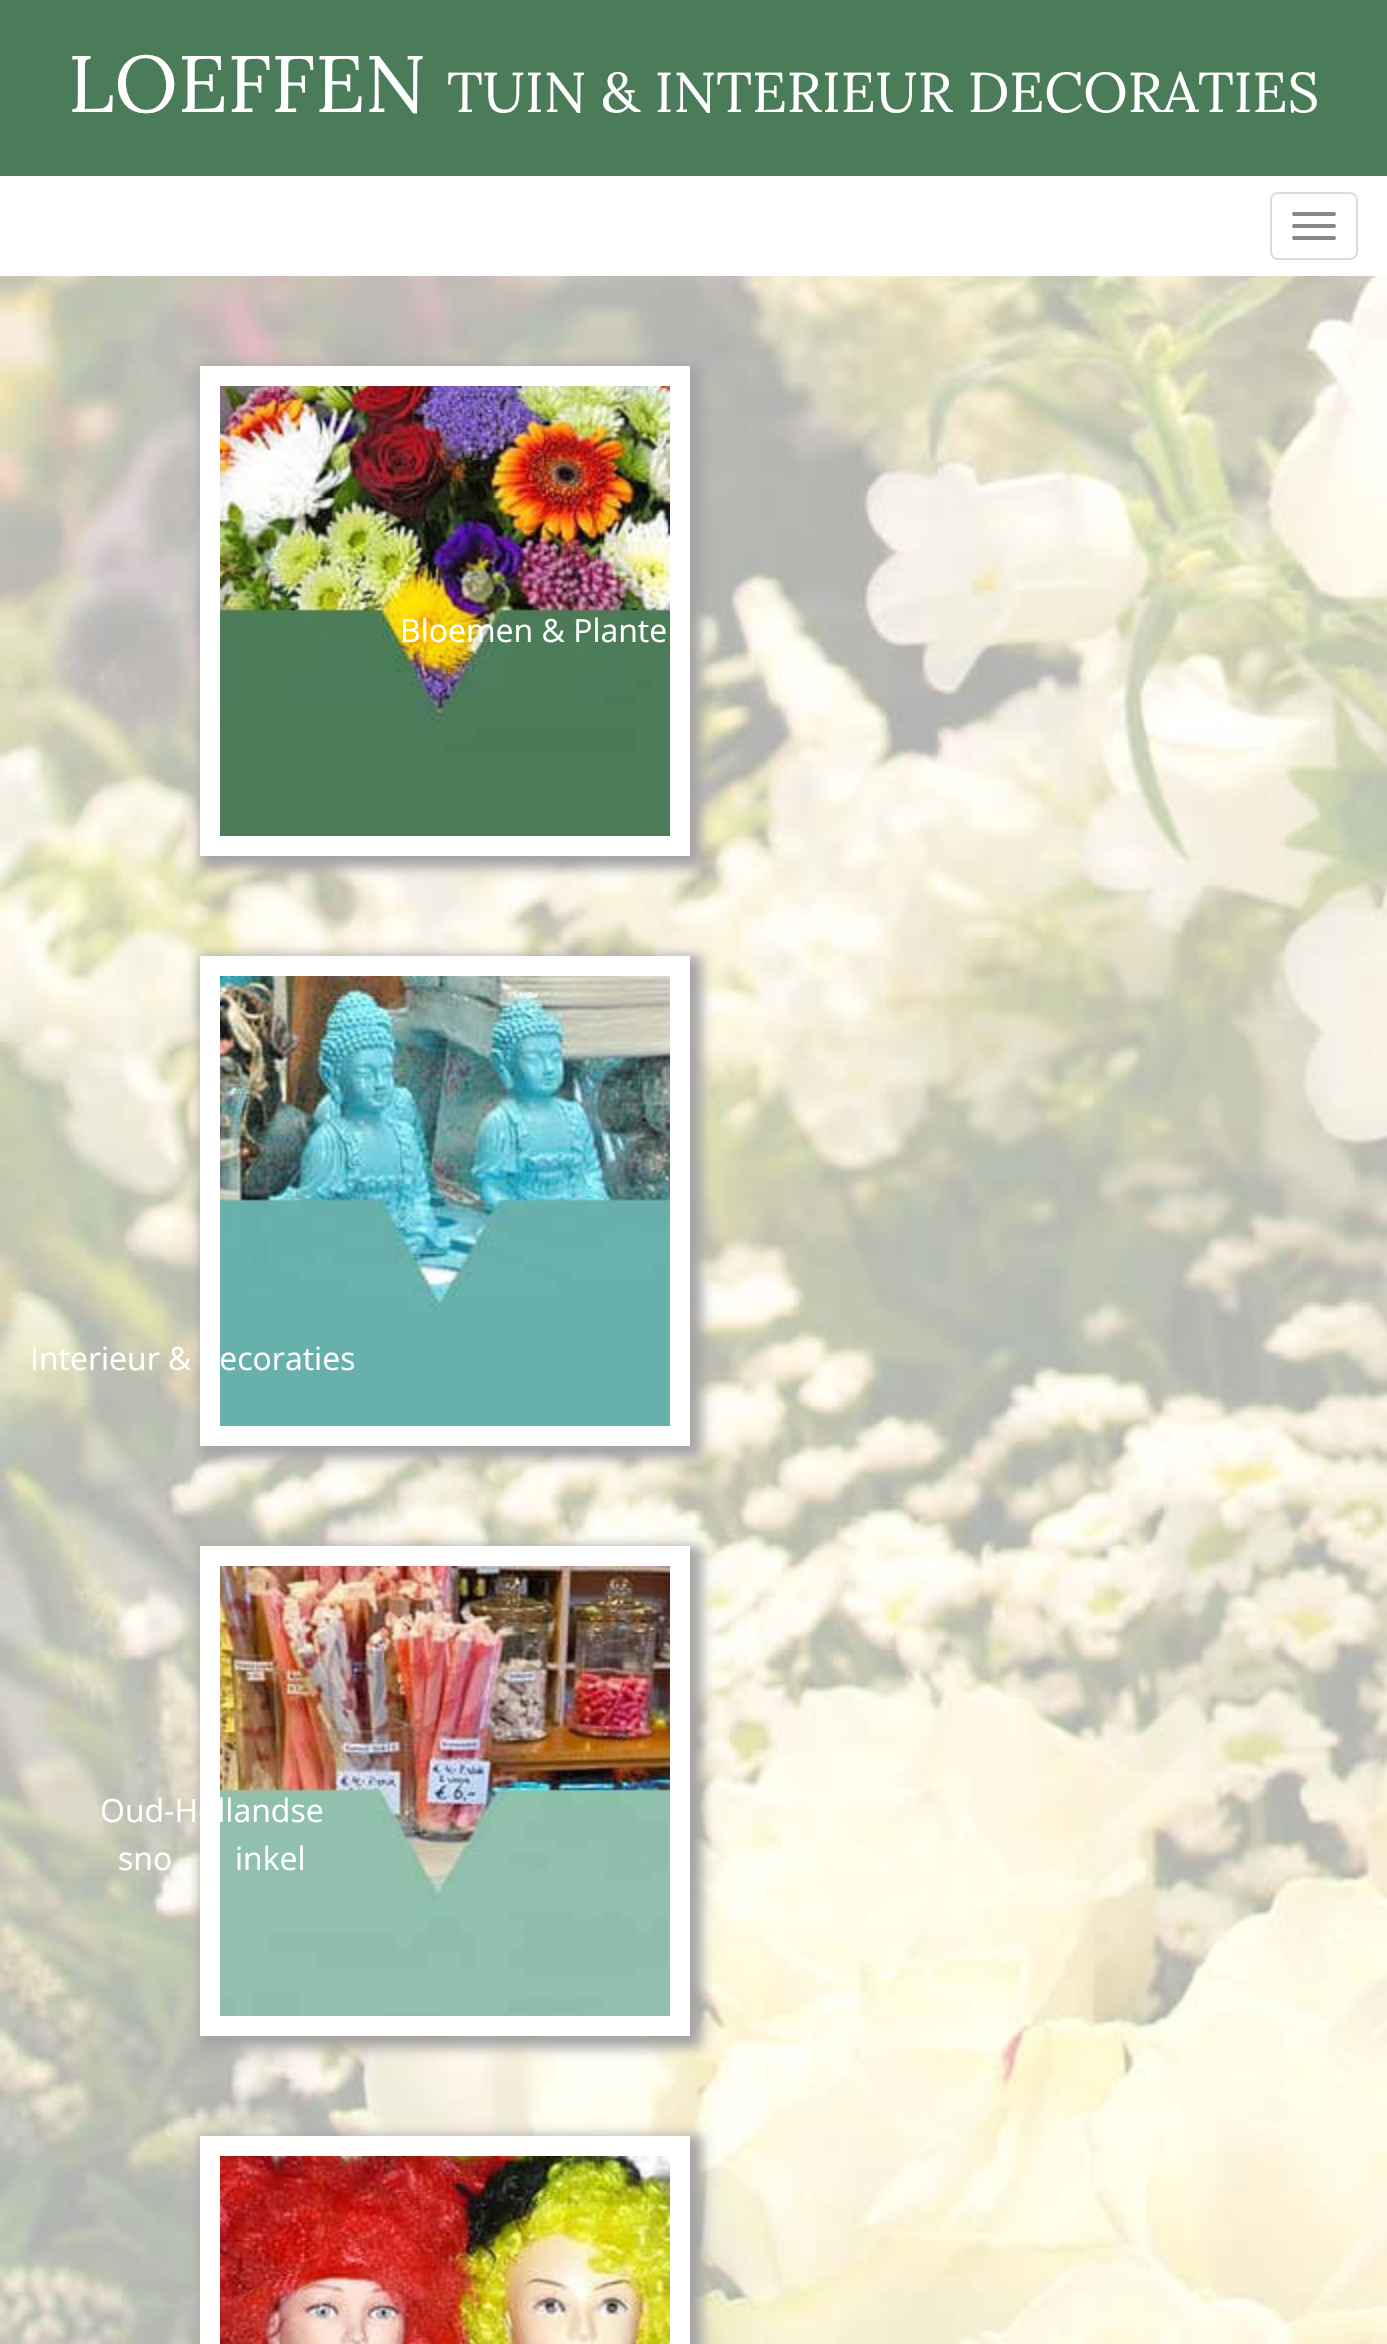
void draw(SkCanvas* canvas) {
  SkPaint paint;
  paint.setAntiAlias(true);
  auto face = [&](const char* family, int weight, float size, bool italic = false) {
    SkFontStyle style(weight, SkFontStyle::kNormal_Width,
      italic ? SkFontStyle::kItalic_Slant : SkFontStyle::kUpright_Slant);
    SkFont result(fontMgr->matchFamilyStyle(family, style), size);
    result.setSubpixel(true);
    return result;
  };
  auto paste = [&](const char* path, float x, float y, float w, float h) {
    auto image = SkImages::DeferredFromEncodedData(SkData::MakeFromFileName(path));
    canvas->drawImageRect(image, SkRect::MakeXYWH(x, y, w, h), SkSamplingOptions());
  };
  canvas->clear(0xffffffff);
  paste("img/1.png", 0, 276, 1387, 2068);
  paint.setColor(0xff4a7c59);
  canvas->drawRect(SkRect::MakeXYWH(0, 0, 1387, 176), paint);
  paint.setStroke(true);
  paint.setStrokeWidth(2);
  paint.setColor(0xffdddddd);
  canvas->drawRoundRect(SkRect::MakeXYWH(1271, 193, 86, 66), 7, 7, paint);
  paint.setStroke(false);
  paint.setColor(0xff888888);
  canvas->drawRoundRect(SkRect::MakeXYWH(1292, 212, 44, 4), 2, 2, paint);
  canvas->drawRoundRect(SkRect::MakeXYWH(1292, 224, 44, 4), 2, 2, paint);
  canvas->drawRoundRect(SkRect::MakeXYWH(1292, 236, 44, 4), 2, 2, paint);
  paint.setColor(0xffa6a4a4);
  paint.setMaskFilter(SkMaskFilter::MakeBlur(kNormal_SkBlurStyle, 6));
  canvas->drawRect(SkRect::MakeXYWH(200, 366, 502, 502), paint);
  paint.setMaskFilter(nullptr);
  paint.setStroke(true);
  paint.setStrokeWidth(20);
  paint.setColor(0xffffffff);
  canvas->drawRect(SkRect::MakeXYWH(210, 376, 470, 470), paint);
  paste("img/2.png", 220, 386, 450, 450);
  paint.setStroke(false);
  paint.setColor(0xffa6a4a4);
  paint.setMaskFilter(SkMaskFilter::MakeBlur(kNormal_SkBlurStyle, 6));
  canvas->drawRect(SkRect::MakeXYWH(200, 956, 502, 502), paint);
  paint.setMaskFilter(nullptr);
  paint.setStroke(true);
  paint.setColor(0xffffffff);
  canvas->drawRect(SkRect::MakeXYWH(210, 966, 470, 470), paint);
  paste("img/3.png", 220, 976, 450, 450);
  paint.setStroke(false);
  paint.setColor(0xffa6a4a4);
  paint.setMaskFilter(SkMaskFilter::MakeBlur(kNormal_SkBlurStyle, 6));
  canvas->drawRect(SkRect::MakeXYWH(200, 1546, 502, 502), paint);
  paint.setMaskFilter(nullptr);
  paint.setStroke(true);
  paint.setColor(0xffffffff);
  canvas->drawRect(SkRect::MakeXYWH(210, 1556, 470, 470), paint);
  paste("img/4.png", 220, 1566, 450, 450);
  paint.setStroke(false);
  paint.setColor(0xffa6a4a4);
  paint.setMaskFilter(SkMaskFilter::MakeBlur(kNormal_SkBlurStyle, 6));
  canvas->drawRect(SkRect::MakeXYWH(200, 2136, 502, 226), paint);
  paint.setMaskFilter(nullptr);
  paint.setStroke(true);
  paint.setColor(0xffffffff);
  canvas->drawRect(SkRect::MakeXYWH(210, 2146, 470, 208), paint);
  paste("img/5.png", 220, 2156, 450, 188);
  auto f0 = face("Lora", 400, 80);
  paint.setStroke(false);
  canvas->drawString("LOEFFEN", 68, 112, f0, paint);
  auto f1 = face("Lora", 400, 56);
  canvas->drawString("TUIN & INTERIEUR DECORATIES", 447, 112, f1, paint);
  auto f2 = face("Open Sans", 400, 32);
  {
    const struct { const char* s; float x, y; } items[] = {
      {"Bloemen & Plante", 400, 642},
      {"Interieur & decoraties", 30, 1370},
      {"Oud-Hollandse", 100, 1822},
      {"sno", 118, 1870},
      {"inkel", 235, 1870},
    };
    for (auto [s, x, y] : items) {
      canvas->drawString(s, x, y, f2, paint);
    }
  }
}
